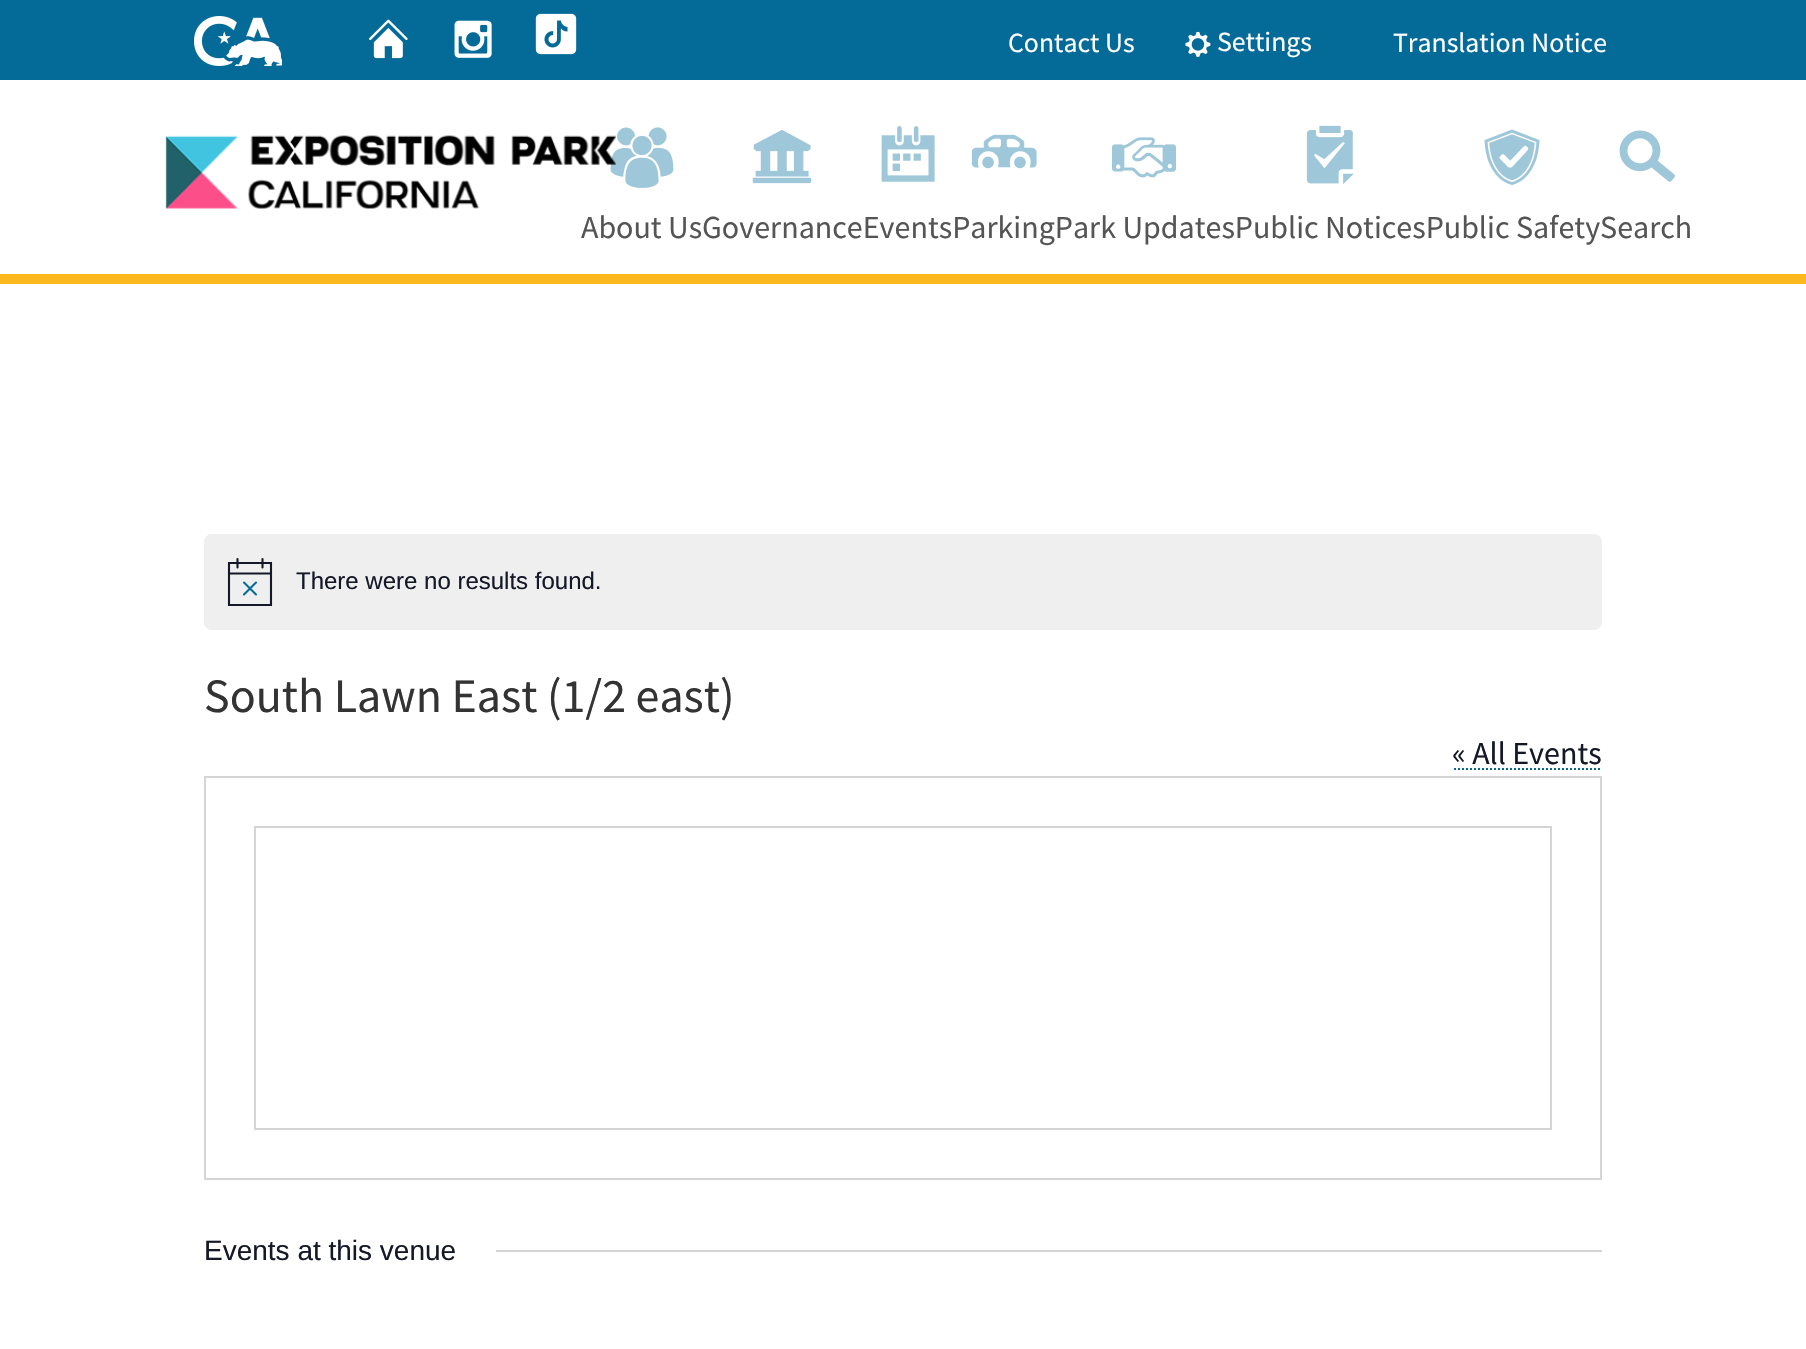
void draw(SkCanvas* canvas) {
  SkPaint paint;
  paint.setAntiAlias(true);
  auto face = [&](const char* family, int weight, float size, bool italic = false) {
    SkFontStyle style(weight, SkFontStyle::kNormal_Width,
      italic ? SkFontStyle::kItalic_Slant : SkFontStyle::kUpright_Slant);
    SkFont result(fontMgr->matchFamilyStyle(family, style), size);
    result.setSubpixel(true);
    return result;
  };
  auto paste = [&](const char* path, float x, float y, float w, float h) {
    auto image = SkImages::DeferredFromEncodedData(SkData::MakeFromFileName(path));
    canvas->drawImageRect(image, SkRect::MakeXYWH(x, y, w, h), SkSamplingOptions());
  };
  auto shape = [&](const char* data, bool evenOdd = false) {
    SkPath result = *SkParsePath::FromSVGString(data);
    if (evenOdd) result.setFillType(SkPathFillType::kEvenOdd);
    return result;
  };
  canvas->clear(0xffffffff);
  paint.setColor(0xff046b99);
  canvas->drawRect(SkRect::MakeXYWH(0, 0, 1806, 80), paint);
  paste("img/1.png", 194, 16, 88, 50);
  paste("img/2.png", 369, 19, 39, 40);
  paste("img/3.png", 454, 20, 38, 38);
  paste("img/4.png", 535, 13, 42, 42);
  paste("img/5.png", 1185, 31, 26, 26);
  paste("img/14.png", 610, 127, 64, 61);
  paste("img/6.png", 165, 135, 451, 74);
  paint.setColor(0xfffdb81e);
  canvas->drawRect(SkRect::MakeXYWH(0, 274, 1806, 10), paint);
  paste("img/7.png", 752, 129, 59, 55);
  paste("img/8.png", 881, 126, 54, 56);
  paste("img/9.png", 971, 134, 66, 35);
  paste("img/10.png", 1112, 137, 64, 41);
  paste("img/11.png", 1306, 125, 48, 59);
  paste("img/12.png", 1484, 129, 56, 56);
  paste("img/13.png", 1619, 130, 56, 52);
  paint.setColor(0xffefeff0);
  canvas->drawRoundRect(SkRect::MakeXYWH(204, 534, 1398, 96), 8, 8, paint);
  paint.setStroke(true);
  paint.setStrokeWidth(2.1f);
  paint.setColor(0xff141827);
  canvas->drawPath(shape("M229 563H271V605H229Z"), paint);
  paint.setStrokeCap(SkPaint::kRound_Cap);
  paint.setColor(0xff046b99);
  canvas->drawPath(shape("M244 582.5L256 594.5M256 582.5L244 594.5"), paint);
  paint.setColor(0xff141827);
  canvas->drawPath(shape("M237.5 559V567.5M262.5 559V567.5"), paint);
  paint.setStrokeCap(SkPaint::kSquare_Cap);
  canvas->drawPath(shape("M229 573.5H271"), paint);
  paste("img/15.png", 1454, 768, 146, 2);
  paint.setStrokeWidth(2);
  paint.setStrokeCap(SkPaint::kButt_Cap);
  paint.setColor(0xffd5d5d5);
  canvas->drawRect(SkRect::MakeXYWH(205, 777, 1396, 402), paint);
  canvas->drawRect(SkRect::MakeXYWH(255, 827, 1296, 302), paint);
  paint.setStroke(false);
  canvas->drawRect(SkRect::MakeXYWH(496, 1250, 1106, 2), paint);
  auto f0 = face("Source Sans Pro", 400, 27.75f);
  paint.setColor(0xffffffff);
  {
    const struct { const char* s; float x, y; } items[] = {
      {"Contact Us", 1008, 52},
      {"Settings", 1217, 51},
      {"Translation Notice", 1393, 52},
    };
    for (auto [s, x, y] : items) {
      canvas->drawString(s, x, y, f0, paint);
    }
  }
  auto f1 = face("Source Sans Pro", 400, 32);
  paint.setColor(0xff555555);
  canvas->drawString("About UsGovernanceEventsParkingPark UpdatesPublic NoticesPublic SafetySearch", 581, 238, f1, paint);
  auto f2 = face("Liberation Sans", 400, 24);
  paint.setColor(0xff141827);
  canvas->drawString("There were no results found.", 296, 589, f2, paint);
  auto f3 = face("Source Sans Pro", 400, 48);
  paint.setColor(0xff333333);
  canvas->drawString("South Lawn East (1/2 east)", 204, 712, f3, paint);
  paint.setColor(0xff141827);
  canvas->drawString("« All Events", 1452, 764, f1, paint);
  auto f4 = face("Liberation Sans", 400, 28);
  canvas->drawString("Events at this venue", 204, 1260, f4, paint);
}
